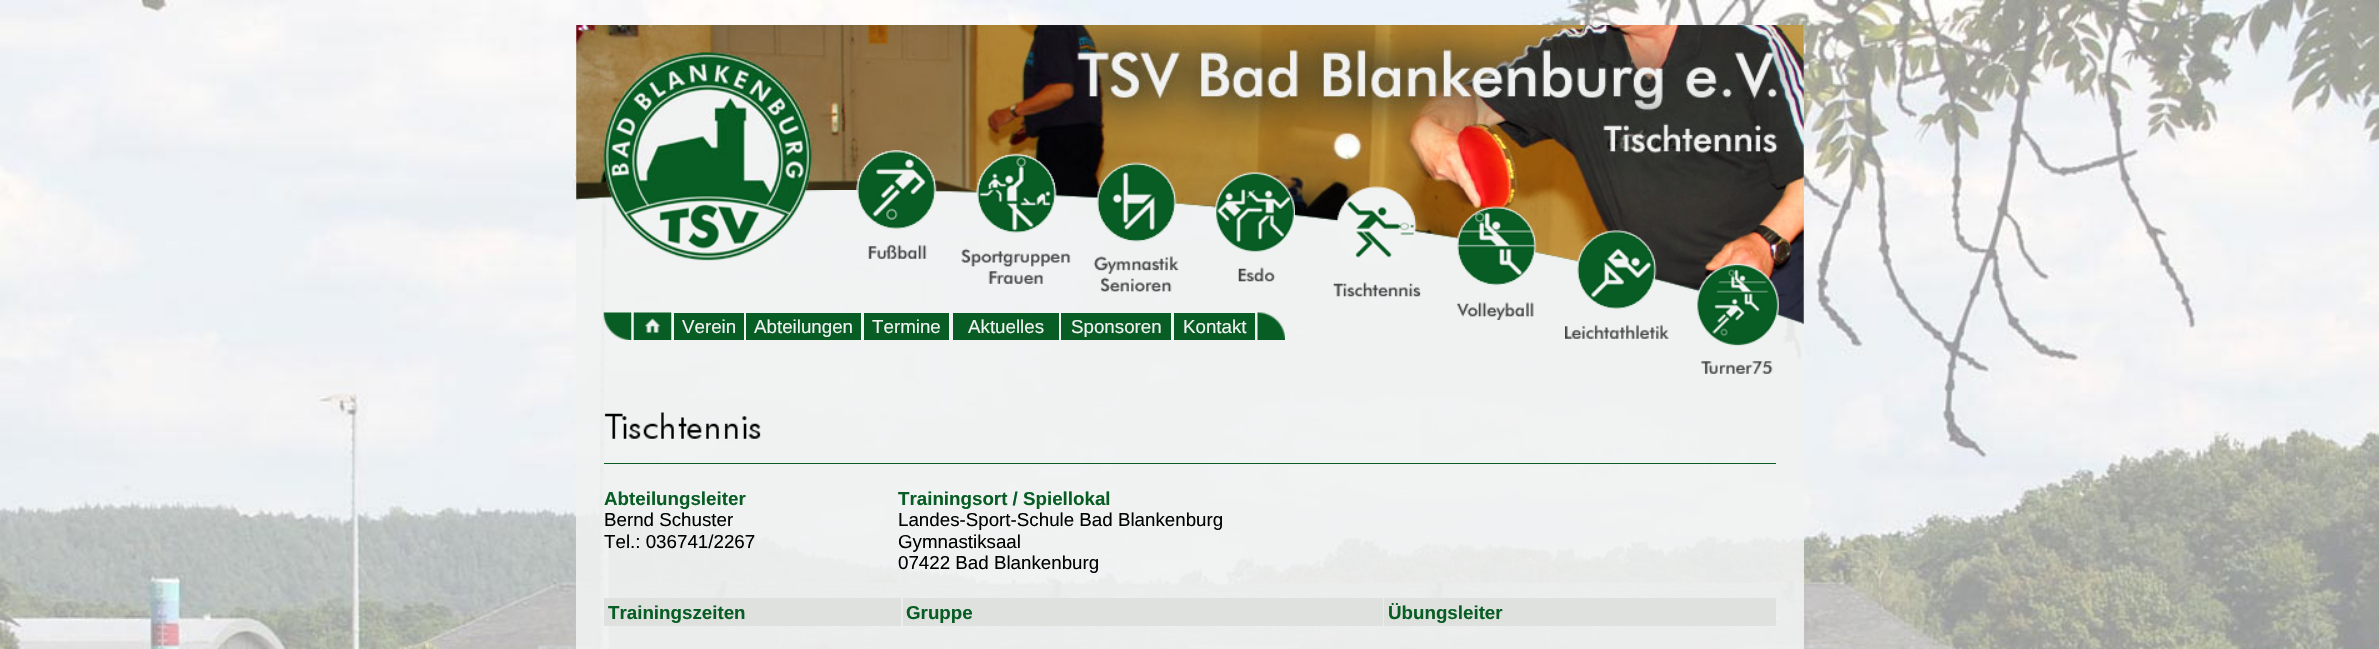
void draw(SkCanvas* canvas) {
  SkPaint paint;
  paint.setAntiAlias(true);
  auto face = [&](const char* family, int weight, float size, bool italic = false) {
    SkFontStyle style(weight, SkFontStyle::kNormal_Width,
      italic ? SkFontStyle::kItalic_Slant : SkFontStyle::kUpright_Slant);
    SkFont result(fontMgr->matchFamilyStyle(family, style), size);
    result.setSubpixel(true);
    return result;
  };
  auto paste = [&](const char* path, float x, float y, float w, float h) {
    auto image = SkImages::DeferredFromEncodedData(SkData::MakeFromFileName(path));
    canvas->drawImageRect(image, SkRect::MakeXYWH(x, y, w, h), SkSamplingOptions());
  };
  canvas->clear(0xffffffff);
  paste("img/1.png", 0, 0, 2379, 649);
  paint.setColor(0xe0f0f1f1);
  canvas->drawRect(SkRect::MakeXYWH(576, 25, 1228, 624), paint);
  paste("img/2.png", 576, 25, 1228, 165);
  paste("img/11.png", 576, 190, 1228, 134);
  paste("img/3.png", 856, 150, 81, 109);
  paste("img/4.png", 961, 153, 110, 131);
  paste("img/5.png", 1093, 162, 86, 130);
  paste("img/6.png", 1215, 172, 80, 110);
  paste("img/7.png", 1333, 186, 88, 111);
  paste("img/8.png", 1456, 206, 81, 114);
  paste("img/9.png", 1565, 230, 104, 109);
  paste("img/10.png", 1697, 263, 82, 111);
  paste("img/12.png", 603, 312, 29, 28);
  paste("img/13.png", 633, 312, 39, 28);
  {
    const struct { float x, y, w, h; SkColor color; } items[] = {
      {674, 313, 70, 27, 0xff075d24},
      {746, 313, 115, 27, 0xff075d24},
      {864, 313, 85, 27, 0xff075d24},
      {953, 313, 106, 27, 0xff075d24},
      {1061, 313, 110, 27, 0xff075d24},
      {1174, 313, 81, 27, 0xff075d24},
    };
    for (auto [x, y, w, h, color] : items) {
      paint.setColor(color);
      canvas->drawRect(SkRect::MakeXYWH(x, y, w, h), paint);
    }
  }
  paste("img/14.png", 1257, 312, 28, 28);
  paste("img/15.png", 604, 412, 157, 27);
  {
    const struct { float x, y, w, h; SkColor color; } items[] = {
      {604, 463, 1172, 1, 0xff075d24},
      {604, 598, 297, 28, 0xffdee1dd},
      {903, 598, 480, 28, 0xffdee1dd},
      {1384, 598, 392, 28, 0xffdee1dd},
    };
    for (auto [x, y, w, h, color] : items) {
      paint.setColor(color);
      canvas->drawRect(SkRect::MakeXYWH(x, y, w, h), paint);
    }
  }
  auto f0 = face("Liberation Sans", 400, 18.75f);
  paint.setColor(0xfff1f2f2);
  {
    const struct { const char* s; float x, y; } items[] = {
      {"Verein", 682, 333},
      {"Abteilungen", 754, 333},
      {"Termine", 872, 333},
      {"Aktuelles", 968, 333},
      {"Sponsoren", 1071, 333},
      {"Kontakt", 1183, 333},
    };
    for (auto [s, x, y] : items) {
      canvas->drawString(s, x, y, f0, paint);
    }
  }
  auto f1 = face("Liberation Sans", 700, 18.75f);
  paint.setColor(0xff075d24);
  canvas->drawString("Abteilungsleiter", 604, 505, f1, paint);
  paint.setColor(0xff000000);
  canvas->drawString("Bernd Schuster", 604, 526, f0, paint);
  canvas->drawString("Tel.: 036741/2267", 604, 548, f0, paint);
  paint.setColor(0xff075d24);
  canvas->drawString("Trainingsort / Spiellokal", 898, 505, f1, paint);
  paint.setColor(0xff000000);
  {
    const struct { const char* s; float x, y; } items[] = {
      {"Landes-Sport-Schule Bad Blankenburg", 898, 526},
      {"Gymnastiksaal", 898, 548},
      {"07422 Bad Blankenburg", 898, 569},
    };
    for (auto [s, x, y] : items) {
      canvas->drawString(s, x, y, f0, paint);
    }
  }
  paint.setColor(0xff075d24);
  {
    const struct { const char* s; float x, y; } items[] = {
      {"Trainingszeiten", 608, 619},
      {"Gruppe", 906, 619},
      {"Übungsleiter", 1388, 619},
    };
    for (auto [s, x, y] : items) {
      canvas->drawString(s, x, y, f1, paint);
    }
  }
}
